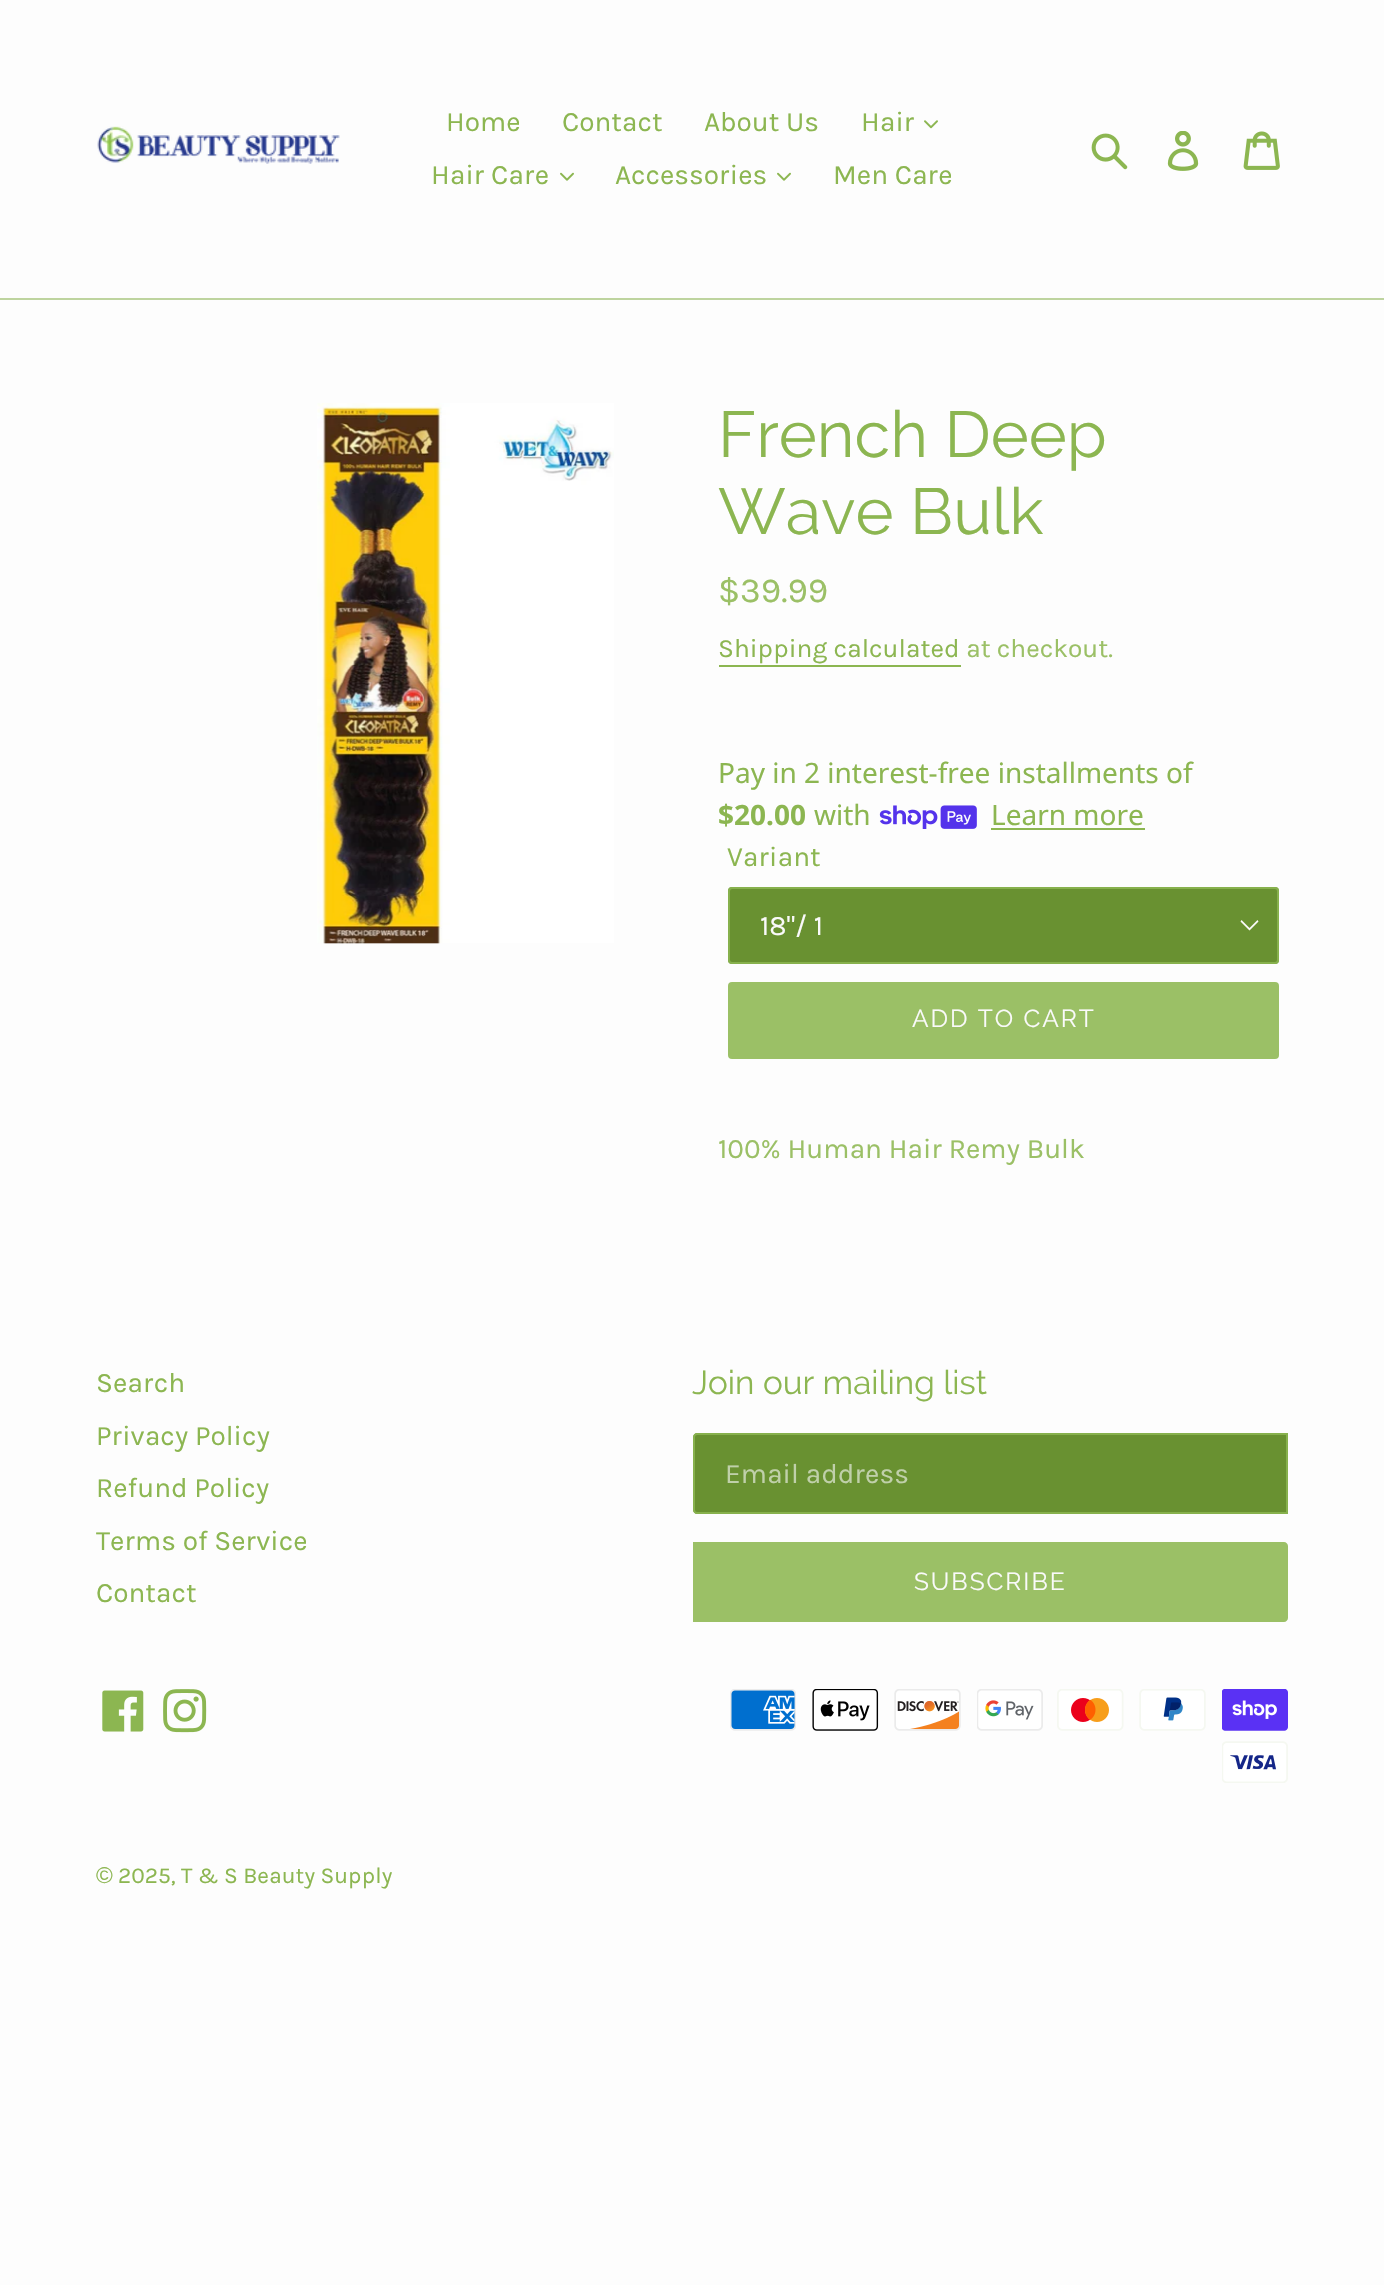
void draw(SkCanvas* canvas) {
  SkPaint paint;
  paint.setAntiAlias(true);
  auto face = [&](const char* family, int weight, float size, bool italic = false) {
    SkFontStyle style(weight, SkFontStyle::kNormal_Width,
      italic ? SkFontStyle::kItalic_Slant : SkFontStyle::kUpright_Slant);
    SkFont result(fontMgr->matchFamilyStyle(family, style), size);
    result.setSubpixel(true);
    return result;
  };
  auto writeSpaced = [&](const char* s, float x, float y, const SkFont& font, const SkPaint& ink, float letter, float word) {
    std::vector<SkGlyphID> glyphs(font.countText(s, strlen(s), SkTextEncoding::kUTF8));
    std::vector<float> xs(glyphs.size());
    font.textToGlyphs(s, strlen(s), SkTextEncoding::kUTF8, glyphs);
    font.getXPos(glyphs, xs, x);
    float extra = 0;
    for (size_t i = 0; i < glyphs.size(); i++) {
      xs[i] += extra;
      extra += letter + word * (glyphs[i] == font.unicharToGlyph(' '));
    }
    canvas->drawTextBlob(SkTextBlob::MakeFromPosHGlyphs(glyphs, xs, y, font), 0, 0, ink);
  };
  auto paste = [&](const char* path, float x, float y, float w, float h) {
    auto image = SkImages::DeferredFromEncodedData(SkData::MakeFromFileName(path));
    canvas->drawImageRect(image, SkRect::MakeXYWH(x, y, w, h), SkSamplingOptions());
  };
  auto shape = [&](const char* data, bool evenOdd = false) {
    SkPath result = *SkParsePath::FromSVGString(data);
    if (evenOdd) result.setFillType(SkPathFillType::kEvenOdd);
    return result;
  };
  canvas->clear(0xfffdfdfd);
  paint.setColor(0xffbed49f);
  canvas->drawRect(SkRect::MakeXYWH(0, 298, 1384, 2), paint);
  paste("img/1.png", 97, 126, 243, 38);
  paste("img/2.png", 924, 120, 14, 9);
  paste("img/3.png", 560, 172, 14, 9);
  paste("img/3.png", 777, 172, 14, 9);
  paste("img/4.png", 1091, 133, 37, 37);
  paste("img/5.png", 1167, 131, 32, 40);
  paste("img/6.png", 1243, 131, 37, 39);
  paste("img/7.png", 317, 403, 297, 541);
  paint.setColor(0xff8cb651);
  canvas->drawRect(SkRect::MakeXYWH(719, 665, 242, 2), paint);
  paste("img/8.png", 879, 805, 98, 24);
  canvas->drawRect(SkRect::MakeXYWH(991, 828, 154, 2), paint);
  paint.setColor(0xff699131);
  canvas->drawRoundRect(SkRect::MakeXYWH(728, 887, 551, 77), 4, 4, paint);
  paint.setColor(0xfffafafa);
  canvas->drawPath(shape("M1249.5 930.5L1240.5 921.5L1241.5 920L1249.5 928L1257.5 920L1258.5 921.5Z"), paint);
  paint.setStroke(true);
  paint.setStrokeWidth(2);
  paint.setColor(0xd98cb651);
  canvas->drawRoundRect(SkRect::MakeXYWH(729, 888, 549, 75), 3, 3, paint);
  paint.setStroke(false);
  paint.setColor(0xff9bc066);
  canvas->drawRoundRect(SkRect::MakeXYWH(728, 982, 551, 77), 4, 4, paint);
  paint.setColor(0xff699131);
  canvas->drawPath(shape("M697 1433H1288V1514H697C695 1514 693 1512 693 1510V1437C693 1435 695 1433 697 1433Z"), paint);
  paint.setStroke(true);
  paint.setColor(0xd98cb651);
  canvas->drawPath(shape("M697 1434H1287V1513H697C695.5 1513 694 1511.5 694 1510V1437C694 1435.5 695.5 1434 697 1434Z"), paint);
  paint.setStroke(false);
  paint.setColor(0xff9bc066);
  canvas->drawPath(shape("M693 1542H1284C1286 1542 1288 1544 1288 1546V1618C1288 1620 1286 1622 1284 1622H693Z"), paint);
  paste("img/9.png", 102, 1690, 42, 42);
  paste("img/10.png", 163, 1689, 44, 44);
  paste("img/11.png", 730, 1689, 66, 42);
  paste("img/12.png", 812, 1689, 67, 42);
  paste("img/13.png", 894, 1689, 67, 42);
  paste("img/14.png", 977, 1689, 66, 42);
  paste("img/15.png", 1057, 1689, 67, 42);
  paste("img/16.png", 1139, 1689, 67, 42);
  paste("img/17.png", 1222, 1689, 66, 42);
  paste("img/18.png", 1222, 1741, 66, 42);
  auto f0 = face("Karla", 400, 28);
  paint.setColor(0xff8cb651);
  {
    const struct { const char* s; float x, y; } items[] = {
      {"Home", 446, 131},
      {"Contact", 562, 131},
      {"About Us", 704, 131},
      {"Hair", 861, 131},
      {"Hair Care", 431, 184},
      {"Accessories", 615, 184},
      {"Men Care", 833, 184},
    };
    for (auto [s, x, y] : items) {
      canvas->drawString(s, x, y, f0, paint);
    }
  }
  auto f1 = face("Raleway", 400, 64.75f);
  canvas->drawString("French Deep", 718, 457, f1, paint);
  canvas->drawString("Wave Bulk", 718, 534, f1, paint);
  auto f2 = face("Karla", 400, 35);
  paint.setColor(0xff9bc066);
  canvas->drawString("$39.99", 718, 602, f2, paint);
  auto f3 = face("Karla", 400, 26.25f);
  paint.setColor(0xff8cb651);
  canvas->drawString("Shipping calculated", 718, 657, f3, paint);
  paint.setColor(0xff9bc066);
  canvas->drawString("at checkout.", 966, 657, f3, paint);
  auto f4 = face("Noto Sans", 400, 28);
  paint.setColor(0xff8cb651);
  canvas->drawString("Pay in 2 interest-free installments of", 718, 783, f4, paint);
  auto f5 = face("Noto Sans", 700, 28);
  canvas->drawString("$20.00", 718, 825, f5, paint);
  canvas->drawString("with", 814, 825, f4, paint);
  canvas->drawString("Learn more", 991, 825, f4, paint);
  canvas->drawString("Variant", 727, 866, f0, paint);
  paint.setColor(0xfffafafa);
  canvas->drawString("18\"/ 1", 760, 935, f0, paint);
  auto f6 = face("Raleway", 400, 24.5f);
  writeSpaced("ADD TO CART", 912, 1027, f6, paint, 2, 0);
  paint.setColor(0xff9bc066);
  canvas->drawString("100% Human Hair Remy Bulk", 718, 1158, f0, paint);
  paint.setColor(0xff8cb651);
  {
    const struct { const char* s; float x, y; } items[] = {
      {"Search", 96, 1392},
      {"Privacy Policy", 96, 1445},
      {"Refund Policy", 96, 1497},
      {"Terms of Service", 96, 1550},
      {"Contact", 96, 1602},
    };
    for (auto [s, x, y] : items) {
      canvas->drawString(s, x, y, f0, paint);
    }
  }
  auto f7 = face("Raleway", 400, 33.25f);
  canvas->drawString("Join our mailing list", 692, 1394, f7, paint);
  paint.setColor(0xffc0d0aa);
  canvas->drawString("Email address", 725, 1483, f0, paint);
  paint.setColor(0xfffafafa);
  writeSpaced("SUBSCRIBE", 914, 1590, f6, paint, 2, 0);
  auto f8 = face("Liberation Sans", 400, 22.75f);
  paint.setColor(0xff8cb651);
  canvas->drawString("©", 96, 1883, f8, paint);
  auto f9 = face("Karla", 400, 22.75f);
  canvas->drawString("2025, T & S Beauty Supply", 118, 1883, f9, paint);
}
